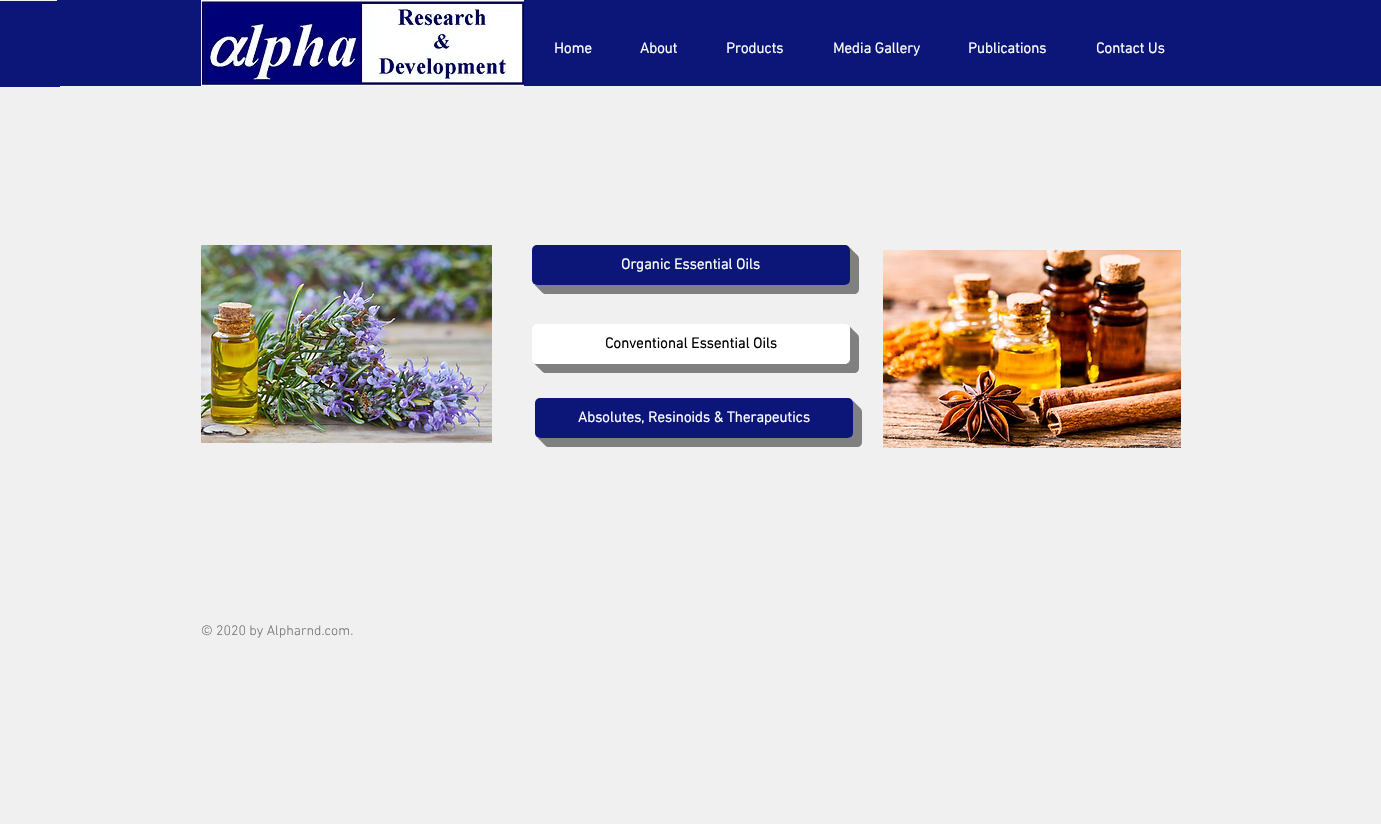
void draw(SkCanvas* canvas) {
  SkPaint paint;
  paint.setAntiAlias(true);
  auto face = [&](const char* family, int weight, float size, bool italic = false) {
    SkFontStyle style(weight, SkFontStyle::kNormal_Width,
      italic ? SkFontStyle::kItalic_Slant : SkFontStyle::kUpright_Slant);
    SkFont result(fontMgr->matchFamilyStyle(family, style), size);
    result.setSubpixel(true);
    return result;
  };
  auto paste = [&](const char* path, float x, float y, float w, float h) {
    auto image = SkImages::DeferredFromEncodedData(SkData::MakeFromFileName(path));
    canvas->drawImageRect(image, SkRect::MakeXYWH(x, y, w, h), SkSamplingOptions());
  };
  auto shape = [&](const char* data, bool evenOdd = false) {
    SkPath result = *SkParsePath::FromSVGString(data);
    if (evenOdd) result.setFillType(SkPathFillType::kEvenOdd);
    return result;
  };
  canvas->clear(0xfff0f0f0);
  paint.setColor(0xff0b1678);
  canvas->drawRect(SkRect::MakeXYWH(0, 1, 60, 86), paint);
  canvas->drawRect(SkRect::MakeXYWH(57, 0, 144, 86), paint);
  paste("img/1.png", 201, 0, 323, 86);
  canvas->drawRect(SkRect::MakeXYWH(524, 0, 857, 86), paint);
  paste("img/2.png", 201, 245, 291, 198);
  paint.setColor(0xff808080);
  canvas->drawPath(shape("M541 285V289C541 292 543 294 546 294H854C857 294 859 292 859 289V259C859 256 857 254 854 254H850V280C850 283 848 285 845 285Z"), paint);
  canvas->drawPath(shape("M539 285V287C539 290 541 292 544 292H852C855 292 857 290 857 287V257C857 254 855 252 852 252H850V280C850 283 848 285 845 285Z"), paint);
  canvas->drawPath(shape("M537 285C537 288 539 290 542 290H850C853 290 855 288 855 285V255C855 252 853 250 850 250V280C850 283 848 285 845 285Z"), paint);
  canvas->drawPath(shape("M535 285C536 287 538 288 540 288H848C851 288 853 286 853 283V253C853 251 852 249 850 248V270C850 274 852 285 845 285Z"), paint);
  canvas->drawPath(shape("M534 284C535 285 536 286 538 286H846C849 286 851 284 851 281V251C851 249 850 248 849 247C850 248 850 249 850 250V280C850 283 848 285 845 285H537C536 285 535 285 534 284Z"), paint);
  paint.setColor(0xff0b1678);
  canvas->drawRoundRect(SkRect::MakeXYWH(532, 245, 318, 40), 5, 5, paint);
  paste("img/3.png", 883, 250, 298, 198);
  paint.setColor(0xff808080);
  canvas->drawPath(shape("M541 364V368C541 371 543 373 546 373H854C857 373 859 371 859 368V338C859 335 857 333 854 333H850V359C850 362 848 364 845 364Z"), paint);
  canvas->drawPath(shape("M539 364V366C539 369 541 371 544 371H852C855 371 857 369 857 366V336C857 333 855 331 852 331H850V359C850 362 848 364 845 364Z"), paint);
  canvas->drawPath(shape("M537 364C537 367 539 369 542 369H850C853 369 855 367 855 364V334C855 331 853 329 850 329V359C850 362 848 364 845 364Z"), paint);
  canvas->drawPath(shape("M535 364C536 366 538 367 540 367H848C851 367 853 365 853 362V332C853 330 852 328 850 327V349C850 353 852 364 845 364Z"), paint);
  canvas->drawPath(shape("M534 363C535 364 536 365 538 365H846C849 365 851 363 851 360V330C851 328 850 327 849 326C850 327 850 328 850 329V359C850 362 848 364 845 364H537C536 364 535 364 534 363Z"), paint);
  paint.setColor(0xffffffff);
  canvas->drawRoundRect(SkRect::MakeXYWH(532, 324, 318, 40), 5, 5, paint);
  paint.setColor(0xff808080);
  canvas->drawPath(shape("M544 438V442C544 445 546 447 549 447H857C860 447 862 445 862 442V412C862 409 860 407 857 407H853V433C853 436 851 438 848 438Z"), paint);
  canvas->drawPath(shape("M542 438V440C542 443 544 445 547 445H855C858 445 860 443 860 440V410C860 407 858 405 855 405H853V433C853 436 851 438 848 438Z"), paint);
  canvas->drawPath(shape("M540 438C540 441 542 443 545 443H853C856 443 858 441 858 438V408C858 405 856 403 853 403V433C853 436 851 438 848 438Z"), paint);
  canvas->drawPath(shape("M538 438C539 440 541 441 543 441H851C854 441 856 439 856 436V406C856 404 855 402 853 401V423C853 427 855 438 848 438Z"), paint);
  canvas->drawPath(shape("M537 437C538 438 539 439 541 439H849C852 439 854 437 854 434V404C854 402 853 401 852 400C853 401 853 402 853 403V433C853 436 851 438 848 438H540C539 438 538 438 537 437Z"), paint);
  paint.setColor(0xff0b1678);
  canvas->drawRoundRect(SkRect::MakeXYWH(535, 398, 318, 40), 5, 5, paint);
  auto f0 = face("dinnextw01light", 700, 15);
  paint.setColor(0xffffffff);
  {
    const struct { const char* s; float x, y; } items[] = {
      {"Home", 554, 53},
      {"About", 640, 53},
      {"Products", 726, 53},
      {"Media Gallery", 833, 53},
      {"Publications", 968, 53},
      {"Contact Us", 1096, 53},
      {"Organic Essential Oils", 621, 269},
    };
    for (auto [s, x, y] : items) {
      canvas->drawString(s, x, y, f0, paint);
    }
  }
  paint.setColor(0xff000000);
  canvas->drawString("Conventional Essential Oils", 605, 348, f0, paint);
  paint.setColor(0xffffffff);
  canvas->drawString("Absolutes, Resinoids & Therapeutics", 578, 422, f0, paint);
  auto f1 = face("dinnextw01light", 300, 14);
  paint.setColor(0xff767676);
  canvas->drawString("© 2020 by Alpharnd.com.", 201, 635, f1, paint);
}
